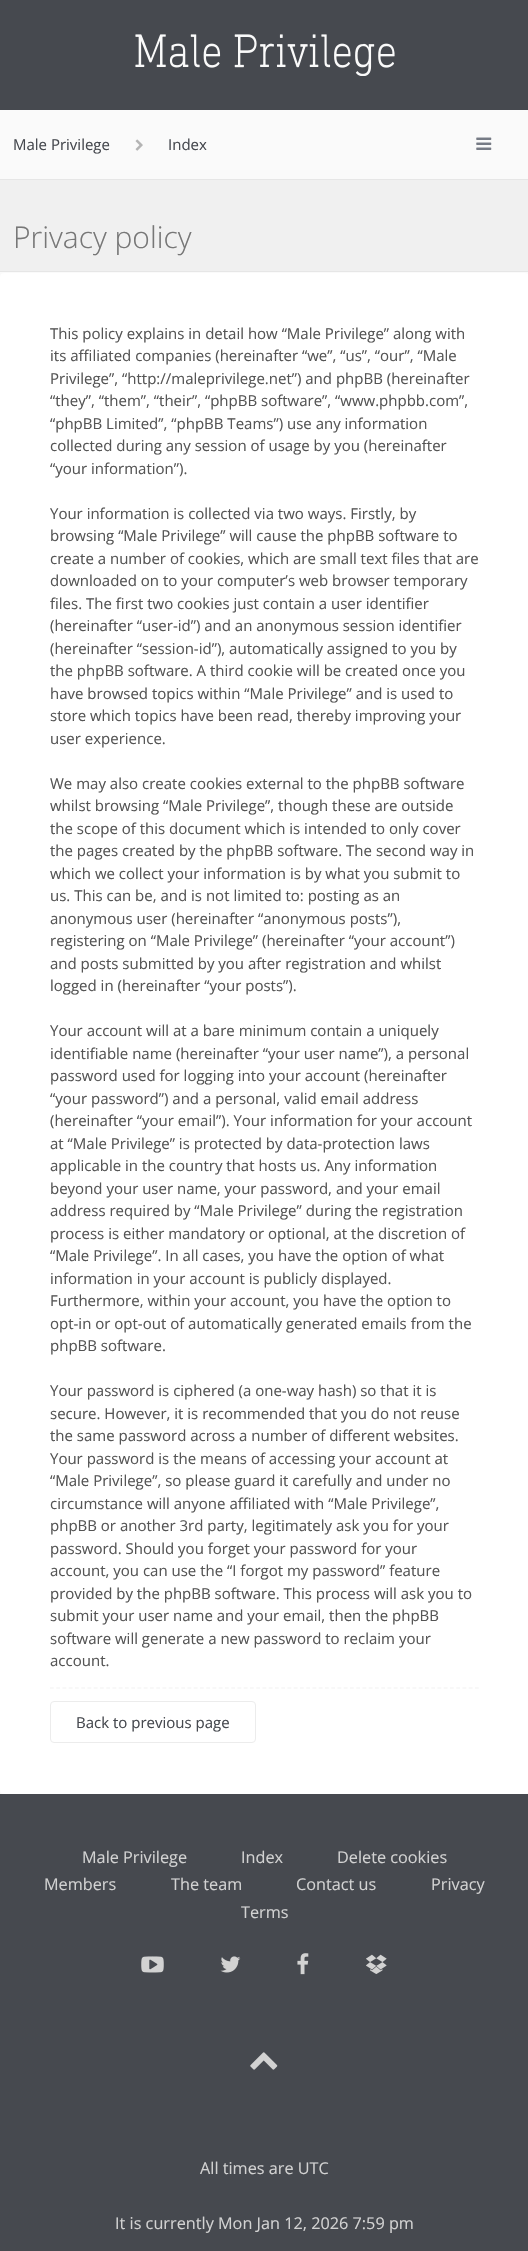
void draw(SkCanvas* canvas) {
  SkPaint paint;
  paint.setAntiAlias(true);
  auto face = [&](const char* family, int weight, float size, bool italic = false) {
    SkFontStyle style(weight, SkFontStyle::kNormal_Width,
      italic ? SkFontStyle::kItalic_Slant : SkFontStyle::kUpright_Slant);
    SkFont result(fontMgr->matchFamilyStyle(family, style), size);
    result.setSubpixel(true);
    return result;
  };
  auto paste = [&](const char* path, float x, float y, float w, float h) {
    auto image = SkImages::DeferredFromEncodedData(SkData::MakeFromFileName(path));
    canvas->drawImageRect(image, SkRect::MakeXYWH(x, y, w, h), SkSamplingOptions());
  };
  auto shape = [&](const char* data, bool evenOdd = false) {
    SkPath result = *SkParsePath::FromSVGString(data);
    if (evenOdd) result.setFillType(SkPathFillType::kEvenOdd);
    return result;
  };
  canvas->clear(0xfffafafa);
  paint.setColor(0xff46494f);
  canvas->drawRect(SkRect::MakeXYWH(0, 0, 528, 110), paint);
  paste("img/1.png", 135, 34, 260, 42);
  paste("img/2.png", 135, 139, 8, 12);
  paste("img/3.png", 476, 137, 16, 13);
  {
    const struct { float x, y, w, h; SkColor color; } items[] = {
      {0, 180, 528, 91, 0xfff0f0f0},
      {0, 179, 528, 1, 0xffe6e6e6},
      {0, 271, 528, 1, 0xffe6e6e6},
    };
    for (auto [x, y, w, h, color] : items) {
      paint.setColor(color);
      canvas->drawRect(SkRect::MakeXYWH(x, y, w, h), paint);
    }
  }
  paint.setColor(0xffffffff);
  canvas->drawRoundRect(SkRect::MakeXYWH(0, 273, 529, 1521), 4, 4, paint);
  paint.setStroke(true);
  paint.setStrokeWidth(1.2f);
  paint.setColor(0xfff2f2f2);
  paint.setPathEffect(SkDashPathEffect::Make({{3.75f, 2.5f}}, 0));
  canvas->drawPath(shape("M50 1688H479"), paint);
  paint.setPathEffect(nullptr);
  paint.setStrokeWidth(1);
  paint.setColor(0xffececec);
  canvas->drawRoundRect(SkRect::MakeXYWH(50.5f, 1701.5f, 205, 41), 3.5f, 3.5f, paint);
  paint.setStroke(false);
  paint.setColor(0xff46494f);
  canvas->drawRect(SkRect::MakeXYWH(0, 1794, 528, 457), paint);
  paste("img/4.png", 141, 1956, 23, 17);
  paste("img/5.png", 220, 1956, 21, 17);
  paste("img/6.png", 297, 1953, 12, 22);
  paste("img/7.png", 366, 1954, 21, 20);
  paste("img/8.png", 250, 2052, 28, 18);
  auto f0 = face("Open Sans", 400, 15);
  canvas->drawString("Male Privilege", 13, 150, f0, paint);
  canvas->drawString("Index", 168, 150, f0, paint);
  auto f1 = face("Open Sans", 300, 30);
  paint.setColor(0xff777777);
  canvas->drawString("Privacy policy", 13, 248, f1, paint);
  paint.setColor(0xff555555);
  {
    const struct { const char* s; float x, y; } items[] = {
      {"This policy explains in detail how “Male Privilege” along with", 50, 339},
      {"its affiliated companies (hereinafter “we”, “us”, “our”, “Male", 50, 361},
      {"Privilege”, “http://maleprivilege.net”) and phpBB (hereinafter", 50, 384},
      {"“they”, “them”, “their”, “phpBB software”, “www.phpbb.com”,", 50, 406},
      {"“phpBB Limited”, “phpBB Teams”) use any information", 50, 429},
      {"collected during any session of usage by you (hereinafter", 50, 451},
      {"“your information”).", 50, 474},
      {"Your information is collected via two ways. Firstly, by", 50, 519},
      {"browsing “Male Privilege” will cause the phpBB software to", 50, 541},
      {"create a number of cookies, which are small text files that are", 50, 564},
      {"downloaded on to your computer’s web browser temporary", 50, 586},
      {"files. The first two cookies just contain a user identifier", 50, 609},
      {"(hereinafter “user-id”) and an anonymous session identifier", 50, 631},
      {"(hereinafter “session-id”), automatically assigned to you by", 50, 654},
      {"the phpBB software. A third cookie will be created once you", 50, 676},
      {"have browsed topics within “Male Privilege” and is used to", 50, 699},
      {"store which topics have been read, thereby improving your", 50, 721},
      {"user experience.", 50, 744},
      {"We may also create cookies external to the phpBB software", 50, 789},
      {"whilst browsing “Male Privilege”, though these are outside", 50, 811},
      {"the scope of this document which is intended to only cover", 50, 834},
      {"the pages created by the phpBB software. The second way in", 50, 856},
      {"which we collect your information is by what you submit to", 50, 879},
      {"us. This can be, and is not limited to: posting as an", 50, 901},
      {"anonymous user (hereinafter “anonymous posts”),", 50, 924},
      {"registering on “Male Privilege” (hereinafter “your account”)", 50, 946},
      {"and posts submitted by you after registration and whilst", 50, 969},
      {"logged in (hereinafter “your posts”).", 50, 991},
      {"Your account will at a bare minimum contain a uniquely", 50, 1036},
      {"identifiable name (hereinafter “your user name”), a personal", 50, 1059},
      {"password used for logging into your account (hereinafter", 50, 1081},
      {"“your password”) and a personal, valid email address", 50, 1104},
      {"(hereinafter “your email”). Your information for your account", 50, 1126},
      {"at “Male Privilege” is protected by data-protection laws", 50, 1149},
      {"applicable in the country that hosts us. Any information", 50, 1171},
      {"beyond your user name, your password, and your email", 50, 1194},
      {"address required by “Male Privilege” during the registration", 50, 1216},
      {"process is either mandatory or optional, at the discretion of", 50, 1239},
      {"“Male Privilege”. In all cases, you have the option of what", 50, 1261},
      {"information in your account is publicly displayed.", 50, 1284},
      {"Furthermore, within your account, you have the option to", 50, 1306},
      {"opt-in or opt-out of automatically generated emails from the", 50, 1329},
      {"phpBB software.", 50, 1351},
      {"Your password is ciphered (a one-way hash) so that it is", 50, 1396},
      {"secure. However, it is recommended that you do not reuse", 50, 1419},
      {"the same password across a number of different websites.", 50, 1441},
      {"Your password is the means of accessing your account at", 50, 1464},
      {"“Male Privilege”, so please guard it carefully and under no", 50, 1486},
      {"circumstance will anyone affiliated with “Male Privilege”,", 50, 1509},
      {"phpBB or another 3rd party, legitimately ask you for your", 50, 1531},
      {"password. Should you forget your password for your", 50, 1554},
      {"account, you can use the “I forgot my password” feature", 50, 1576},
      {"provided by the phpBB software. This process will ask you to", 50, 1599},
      {"submit your user name and your email, then the phpBB", 50, 1621},
      {"software will generate a new password to reclaim your", 50, 1644},
      {"account.", 50, 1666},
    };
    for (auto [s, x, y] : items) {
      canvas->drawString(s, x, y, f0, paint);
    }
  }
  paint.setColor(0xff46494f);
  canvas->drawString("Back to previous page", 76, 1728, f0, paint);
  auto f2 = face("Open Sans", 400, 16.25f);
  paint.setColor(0xffd2d2d2);
  {
    const struct { const char* s; float x, y; } items[] = {
      {"Male Privilege", 82, 1863},
      {"Index", 241, 1863},
      {"Delete cookies", 337, 1863},
      {"Members", 44, 1890},
      {"The team", 171, 1890},
      {"Contact us", 296, 1890},
      {"Privacy", 431, 1890},
      {"Terms", 241, 1918},
      {"All times are UTC", 200, 2174},
      {"It is currently Mon Jan 12, 2026 7:59 pm", 115, 2229},
    };
    for (auto [s, x, y] : items) {
      canvas->drawString(s, x, y, f2, paint);
    }
  }
}
